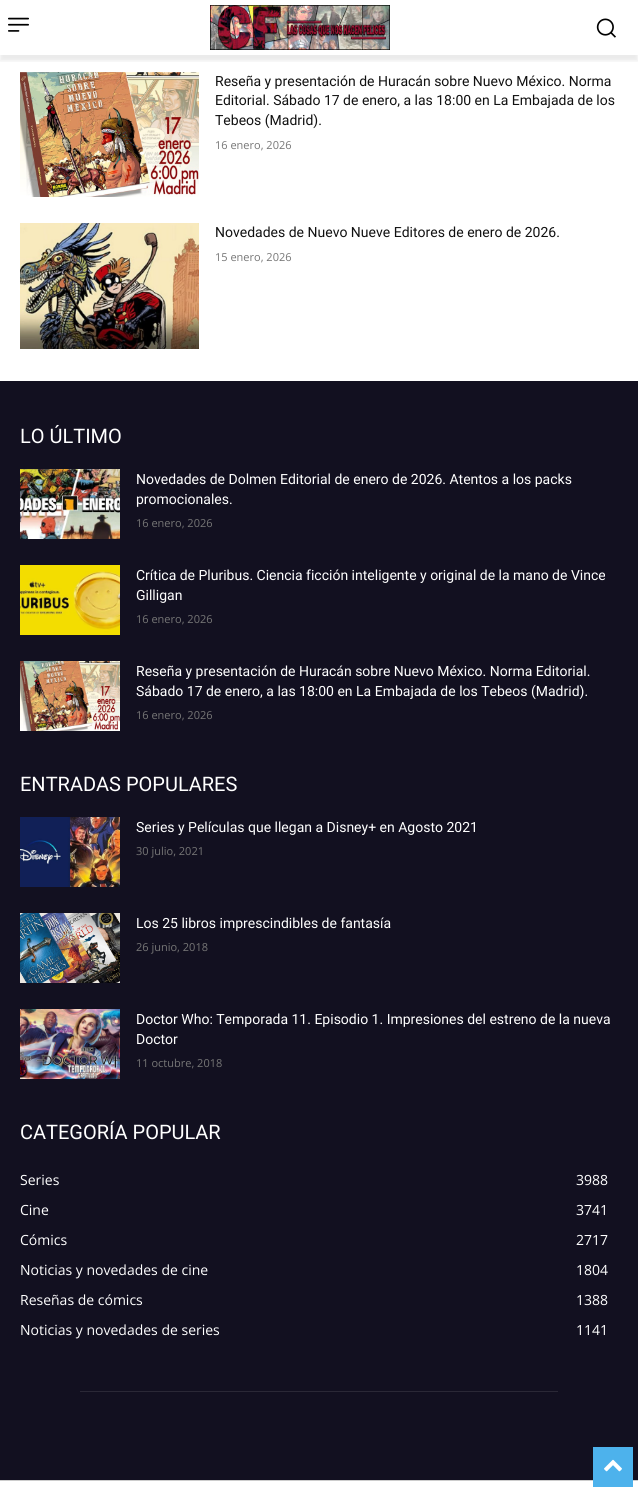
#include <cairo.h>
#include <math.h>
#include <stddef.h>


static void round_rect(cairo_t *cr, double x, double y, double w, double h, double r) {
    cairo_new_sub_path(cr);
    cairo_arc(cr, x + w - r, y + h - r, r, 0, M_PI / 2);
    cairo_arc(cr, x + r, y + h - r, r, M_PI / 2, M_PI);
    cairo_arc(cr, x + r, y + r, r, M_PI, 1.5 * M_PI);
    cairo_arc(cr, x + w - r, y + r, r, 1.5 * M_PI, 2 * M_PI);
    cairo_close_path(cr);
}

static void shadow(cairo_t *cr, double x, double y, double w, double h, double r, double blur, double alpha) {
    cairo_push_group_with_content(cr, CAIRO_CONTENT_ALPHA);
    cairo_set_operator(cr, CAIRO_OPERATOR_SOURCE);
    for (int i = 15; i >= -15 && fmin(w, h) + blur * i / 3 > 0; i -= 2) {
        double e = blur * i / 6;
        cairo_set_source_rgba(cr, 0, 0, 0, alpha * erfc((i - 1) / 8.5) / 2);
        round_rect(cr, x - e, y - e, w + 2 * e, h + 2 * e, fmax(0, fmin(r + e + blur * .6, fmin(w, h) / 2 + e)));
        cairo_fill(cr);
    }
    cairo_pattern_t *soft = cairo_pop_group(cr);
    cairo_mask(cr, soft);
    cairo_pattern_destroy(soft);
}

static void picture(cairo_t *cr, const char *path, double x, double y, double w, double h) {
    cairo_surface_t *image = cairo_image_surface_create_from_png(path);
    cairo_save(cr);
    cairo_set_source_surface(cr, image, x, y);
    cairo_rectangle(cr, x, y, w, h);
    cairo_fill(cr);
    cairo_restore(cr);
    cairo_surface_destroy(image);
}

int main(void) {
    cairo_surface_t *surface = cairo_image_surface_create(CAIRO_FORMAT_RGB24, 638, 1491);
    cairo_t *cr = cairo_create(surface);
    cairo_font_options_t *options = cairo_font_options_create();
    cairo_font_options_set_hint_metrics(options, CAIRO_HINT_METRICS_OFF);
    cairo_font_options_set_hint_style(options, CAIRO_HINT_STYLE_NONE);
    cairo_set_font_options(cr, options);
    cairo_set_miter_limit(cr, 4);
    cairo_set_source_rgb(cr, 1, 1, 1);
    cairo_paint(cr);
    picture(cr, "img1.png", 8, 17, 21, 15);
    picture(cr, "img2.png", 210, 5, 180, 45);
    picture(cr, "img3.png", 596, 18, 20, 20);
    cairo_save(cr);
    cairo_rectangle(cr, 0, 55, 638, 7);
    cairo_clip(cr);
    cairo_set_source_rgb(cr, 0, 0, 0);
    shadow(cr, 0, 6, 638, 55, 0, 2, 0.08);
    cairo_restore(cr);
    picture(cr, "img4.png", 20, 72, 179, 125);
    cairo_select_font_face(cr, "Roboto", CAIRO_FONT_SLANT_NORMAL, CAIRO_FONT_WEIGHT_NORMAL);
    cairo_set_font_size(cr, 14);
    cairo_set_source_rgb(cr, 0.067, 0.067, 0.067);
    cairo_move_to(cr, 215, 86);
    cairo_show_text(cr, "Reseña y presentación de Huracán sobre Nuevo México. Norma");
    cairo_move_to(cr, 215, 105);
    cairo_show_text(cr, "Editorial. Sábado 17 de enero, a las 18:00 en La Embajada de los");
    cairo_move_to(cr, 215, 125);
    cairo_show_text(cr, "Tebeos (Madrid).");
    cairo_select_font_face(cr, "Open Sans", CAIRO_FONT_SLANT_NORMAL, CAIRO_FONT_WEIGHT_NORMAL);
    cairo_set_font_size(cr, 11);
    cairo_set_source_rgb(cr, 0.463, 0.463, 0.463);
    cairo_move_to(cr, 215, 149);
    cairo_show_text(cr, "16 enero, 2026");
    picture(cr, "img5.png", 20, 223, 179, 126);
    cairo_select_font_face(cr, "Roboto", CAIRO_FONT_SLANT_NORMAL, CAIRO_FONT_WEIGHT_NORMAL);
    cairo_set_font_size(cr, 14);
    cairo_set_source_rgb(cr, 0.067, 0.067, 0.067);
    cairo_move_to(cr, 215, 237);
    cairo_show_text(cr, "Novedades de Nuevo Nueve Editores de enero de 2026.");
    cairo_select_font_face(cr, "Open Sans", CAIRO_FONT_SLANT_NORMAL, CAIRO_FONT_WEIGHT_NORMAL);
    cairo_set_font_size(cr, 11);
    cairo_set_source_rgb(cr, 0.463, 0.463, 0.463);
    cairo_move_to(cr, 215, 261);
    cairo_show_text(cr, "15 enero, 2026");
    cairo_set_source_rgb(cr, 0.071, 0.063, 0.125);
    cairo_rectangle(cr, 0, 381, 638, 1099);
    cairo_fill(cr);
    cairo_select_font_face(cr, "Roboto", CAIRO_FONT_SLANT_NORMAL, CAIRO_FONT_WEIGHT_NORMAL);
    cairo_set_font_size(cr, 20);
    cairo_set_source_rgb(cr, 1, 1, 1);
    cairo_move_to(cr, 20, 443);
    cairo_show_text(cr, "LO ÚLTIMO");
    picture(cr, "img6.png", 20, 469, 100, 70);
    cairo_set_font_size(cr, 14);
    cairo_move_to(cr, 136, 484);
    cairo_show_text(cr, "Novedades de Dolmen Editorial de enero de 2026. Atentos a los packs");
    cairo_move_to(cr, 136, 504);
    cairo_show_text(cr, "promocionales.");
    cairo_select_font_face(cr, "Open Sans", CAIRO_FONT_SLANT_NORMAL, CAIRO_FONT_WEIGHT_NORMAL);
    cairo_set_font_size(cr, 11);
    cairo_set_source_rgb(cr, 0.463, 0.463, 0.463);
    cairo_move_to(cr, 136, 527);
    cairo_show_text(cr, "16 enero, 2026");
    picture(cr, "img7.png", 20, 565, 100, 70);
    cairo_select_font_face(cr, "Roboto", CAIRO_FONT_SLANT_NORMAL, CAIRO_FONT_WEIGHT_NORMAL);
    cairo_set_font_size(cr, 14);
    cairo_set_source_rgb(cr, 1, 1, 1);
    cairo_move_to(cr, 136, 580);
    cairo_show_text(cr, "Crítica de Pluribus. Ciencia ficción inteligente y original de la mano de Vince");
    cairo_move_to(cr, 136, 600);
    cairo_show_text(cr, "Gilligan");
    cairo_select_font_face(cr, "Open Sans", CAIRO_FONT_SLANT_NORMAL, CAIRO_FONT_WEIGHT_NORMAL);
    cairo_set_font_size(cr, 11);
    cairo_set_source_rgb(cr, 0.463, 0.463, 0.463);
    cairo_move_to(cr, 136, 623);
    cairo_show_text(cr, "16 enero, 2026");
    picture(cr, "img8.png", 20, 661, 100, 70);
    cairo_select_font_face(cr, "Roboto", CAIRO_FONT_SLANT_NORMAL, CAIRO_FONT_WEIGHT_NORMAL);
    cairo_set_font_size(cr, 14);
    cairo_set_source_rgb(cr, 1, 1, 1);
    cairo_move_to(cr, 136, 676);
    cairo_show_text(cr, "Reseña y presentación de Huracán sobre Nuevo México. Norma Editorial.");
    cairo_move_to(cr, 136, 696);
    cairo_show_text(cr, "Sábado 17 de enero, a las 18:00 en La Embajada de los Tebeos (Madrid).");
    cairo_select_font_face(cr, "Open Sans", CAIRO_FONT_SLANT_NORMAL, CAIRO_FONT_WEIGHT_NORMAL);
    cairo_set_font_size(cr, 11);
    cairo_set_source_rgb(cr, 0.463, 0.463, 0.463);
    cairo_move_to(cr, 136, 719);
    cairo_show_text(cr, "16 enero, 2026");
    cairo_select_font_face(cr, "Roboto", CAIRO_FONT_SLANT_NORMAL, CAIRO_FONT_WEIGHT_NORMAL);
    cairo_set_font_size(cr, 20);
    cairo_set_source_rgb(cr, 1, 1, 1);
    cairo_move_to(cr, 20, 791);
    cairo_show_text(cr, "ENTRADAS POPULARES");
    picture(cr, "img9.png", 20, 817, 100, 70);
    cairo_set_font_size(cr, 14);
    cairo_move_to(cr, 136, 832);
    cairo_show_text(cr, "Series y Películas que llegan a Disney+ en Agosto 2021");
    cairo_select_font_face(cr, "Open Sans", CAIRO_FONT_SLANT_NORMAL, CAIRO_FONT_WEIGHT_NORMAL);
    cairo_set_font_size(cr, 11);
    cairo_set_source_rgb(cr, 0.463, 0.463, 0.463);
    cairo_move_to(cr, 136, 855);
    cairo_show_text(cr, "30 julio, 2021");
    picture(cr, "img10.png", 20, 913, 100, 70);
    cairo_select_font_face(cr, "Roboto", CAIRO_FONT_SLANT_NORMAL, CAIRO_FONT_WEIGHT_NORMAL);
    cairo_set_font_size(cr, 14);
    cairo_set_source_rgb(cr, 1, 1, 1);
    cairo_move_to(cr, 136, 928);
    cairo_show_text(cr, "Los 25 libros imprescindibles de fantasía");
    cairo_select_font_face(cr, "Open Sans", CAIRO_FONT_SLANT_NORMAL, CAIRO_FONT_WEIGHT_NORMAL);
    cairo_set_font_size(cr, 11);
    cairo_set_source_rgb(cr, 0.463, 0.463, 0.463);
    cairo_move_to(cr, 136, 951);
    cairo_show_text(cr, "26 junio, 2018");
    picture(cr, "img11.png", 20, 1009, 100, 70);
    cairo_select_font_face(cr, "Roboto", CAIRO_FONT_SLANT_NORMAL, CAIRO_FONT_WEIGHT_NORMAL);
    cairo_set_font_size(cr, 14);
    cairo_set_source_rgb(cr, 1, 1, 1);
    cairo_move_to(cr, 136, 1024);
    cairo_show_text(cr, "Doctor Who: Temporada 11. Episodio 1. Impresiones del estreno de la nueva");
    cairo_move_to(cr, 136, 1044);
    cairo_show_text(cr, "Doctor");
    cairo_select_font_face(cr, "Open Sans", CAIRO_FONT_SLANT_NORMAL, CAIRO_FONT_WEIGHT_NORMAL);
    cairo_set_font_size(cr, 11);
    cairo_set_source_rgb(cr, 0.463, 0.463, 0.463);
    cairo_move_to(cr, 136, 1067);
    cairo_show_text(cr, "11 octubre, 2018");
    cairo_select_font_face(cr, "Roboto", CAIRO_FONT_SLANT_NORMAL, CAIRO_FONT_WEIGHT_NORMAL);
    cairo_set_font_size(cr, 20);
    cairo_set_source_rgb(cr, 1, 1, 1);
    cairo_move_to(cr, 20, 1139);
    cairo_show_text(cr, "CATEGORÍA POPULAR");
    cairo_select_font_face(cr, "Open Sans", CAIRO_FONT_SLANT_NORMAL, CAIRO_FONT_WEIGHT_NORMAL);
    cairo_set_font_size(cr, 14);
    cairo_move_to(cr, 20, 1185);
    cairo_show_text(cr, "Series");
    cairo_move_to(cr, 576, 1185);
    cairo_show_text(cr, "3988");
    cairo_move_to(cr, 20, 1215);
    cairo_show_text(cr, "Cine");
    cairo_move_to(cr, 576, 1215);
    cairo_show_text(cr, "3741");
    cairo_move_to(cr, 20, 1245);
    cairo_show_text(cr, "Cómics");
    cairo_move_to(cr, 576, 1245);
    cairo_show_text(cr, "2717");
    cairo_move_to(cr, 20, 1275);
    cairo_show_text(cr, "Noticias y novedades de cine");
    cairo_move_to(cr, 576, 1275);
    cairo_show_text(cr, "1804");
    cairo_move_to(cr, 20, 1305);
    cairo_show_text(cr, "Reseñas de cómics");
    cairo_move_to(cr, 576, 1305);
    cairo_show_text(cr, "1388");
    cairo_move_to(cr, 20, 1335);
    cairo_show_text(cr, "Noticias y novedades de series");
    cairo_move_to(cr, 576, 1335);
    cairo_show_text(cr, "1141");
    cairo_set_source_rgb(cr, 0.165, 0.157, 0.212);
    cairo_rectangle(cr, 80, 1391, 478, 1);
    cairo_fill(cr);
    cairo_set_source_rgb(cr, 0.8, 0.8, 0.8);
    cairo_rectangle(cr, 0, 1480, 638, 1);
    cairo_fill(cr);
    cairo_set_source_rgb(cr, 0.302, 0.698, 0.925);
    cairo_rectangle(cr, 593, 1447, 40, 40);
    cairo_fill(cr);
    picture(cr, "img12.png", 604, 1459, 18, 13);
    cairo_surface_write_to_png(surface, "page.png");
    cairo_font_options_destroy(options);
    cairo_destroy(cr);
    cairo_surface_destroy(surface);
    return 0;
}
